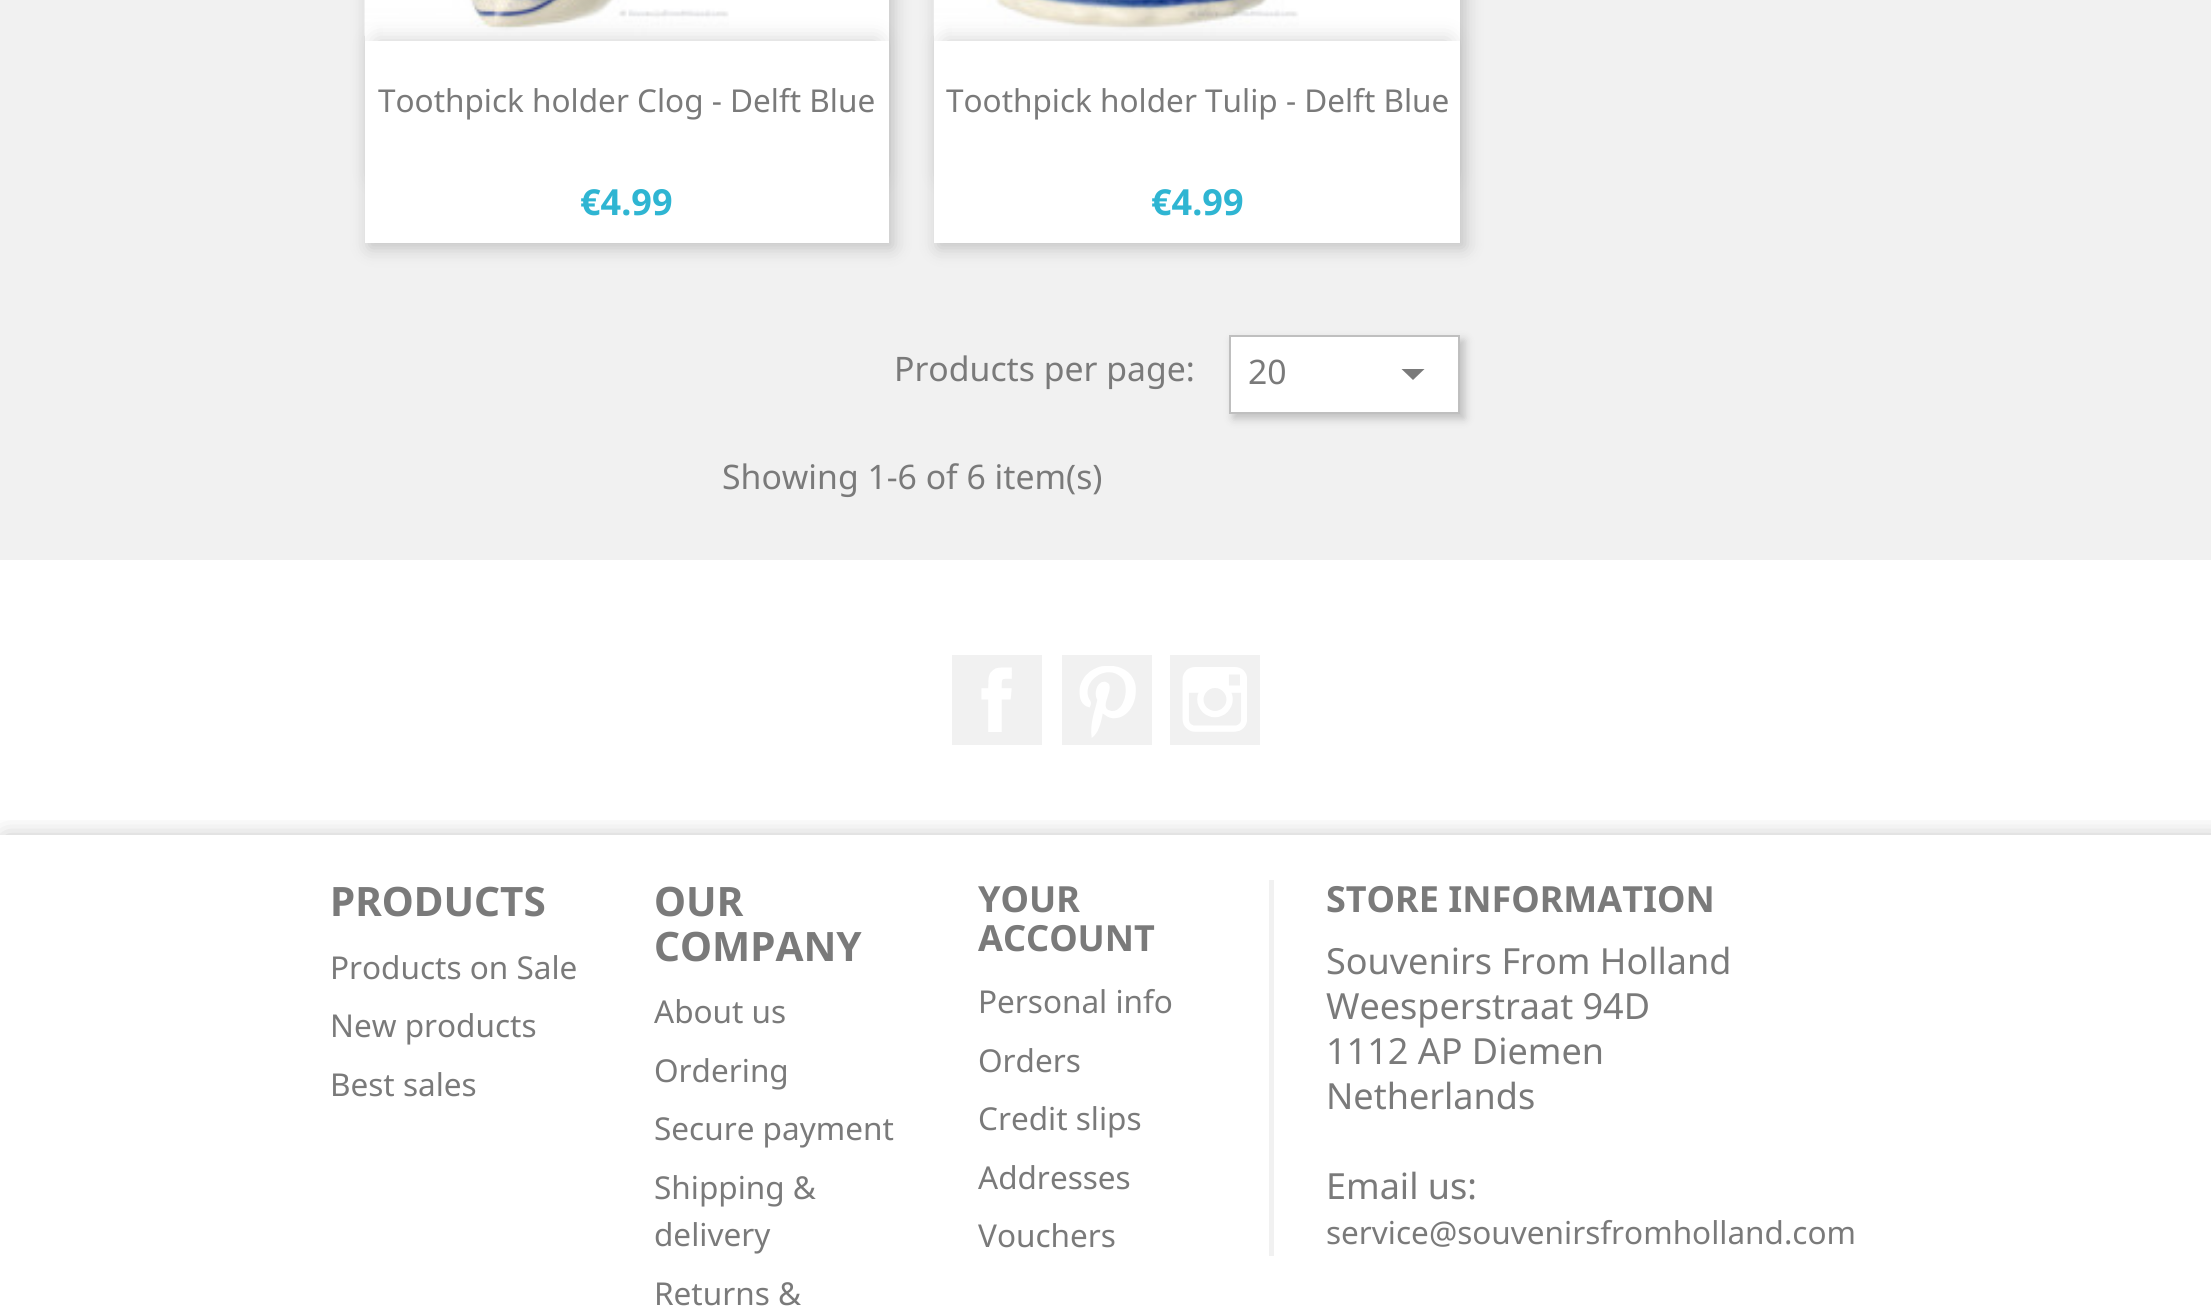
#include <cairo.h>
#include <math.h>
#include <stddef.h>


static void round_rect(cairo_t *cr, double x, double y, double w, double h, double r) {
    cairo_new_sub_path(cr);
    cairo_arc(cr, x + w - r, y + h - r, r, 0, M_PI / 2);
    cairo_arc(cr, x + r, y + h - r, r, M_PI / 2, M_PI);
    cairo_arc(cr, x + r, y + r, r, M_PI, 1.5 * M_PI);
    cairo_arc(cr, x + w - r, y + r, r, 1.5 * M_PI, 2 * M_PI);
    cairo_close_path(cr);
}

static void shadow(cairo_t *cr, double x, double y, double w, double h, double r, double blur, double alpha) {
    cairo_push_group_with_content(cr, CAIRO_CONTENT_ALPHA);
    cairo_set_operator(cr, CAIRO_OPERATOR_SOURCE);
    for (int i = 15; i >= -15 && fmin(w, h) + blur * i / 3 > 0; i -= 2) {
        double e = blur * i / 6;
        cairo_set_source_rgba(cr, 0, 0, 0, alpha * erfc((i - 1) / 8.5) / 2);
        round_rect(cr, x - e, y - e, w + 2 * e, h + 2 * e, fmax(0, fmin(r + e + blur * .6, fmin(w, h) / 2 + e)));
        cairo_fill(cr);
    }
    cairo_pattern_t *soft = cairo_pop_group(cr);
    cairo_mask(cr, soft);
    cairo_pattern_destroy(soft);
}

static void picture(cairo_t *cr, const char *path, double x, double y, double w, double h) {
    cairo_surface_t *image = cairo_image_surface_create_from_png(path);
    cairo_save(cr);
    cairo_set_source_surface(cr, image, x, y);
    cairo_rectangle(cr, x, y, w, h);
    cairo_fill(cr);
    cairo_restore(cr);
    cairo_surface_destroy(image);
}

int main(void) {
    cairo_surface_t *surface = cairo_image_surface_create(CAIRO_FORMAT_RGB24, 2211, 1313);
    cairo_t *cr = cairo_create(surface);
    cairo_font_options_t *options = cairo_font_options_create();
    cairo_font_options_set_hint_metrics(options, CAIRO_HINT_METRICS_OFF);
    cairo_font_options_set_hint_style(options, CAIRO_HINT_STYLE_NONE);
    cairo_set_font_options(cr, options);
    cairo_set_miter_limit(cr, 4);
    cairo_set_source_rgb(cr, 1, 1, 1);
    cairo_paint(cr);
    cairo_set_source_rgb(cr, 0.945, 0.945, 0.945);
    cairo_rectangle(cr, 0, 0, 2211, 560);
    cairo_fill(cr);
    cairo_set_source_rgb(cr, 0, 0, 0);
    shadow(cr, 369, -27, 524, 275, 0, 9, 0.2);
    cairo_set_source_rgb(cr, 1, 1, 1);
    cairo_rectangle(cr, 365, 0, 524, 41);
    cairo_fill(cr);
    picture(cr, "img1.png", 364, 0, 365, 36);
    cairo_set_source_rgb(cr, 0, 0, 0);
    shadow(cr, 376, 41, 502, 135, 0, 11, 0.2);
    cairo_set_source_rgb(cr, 1, 1, 1);
    cairo_rectangle(cr, 365, 41, 524, 202);
    cairo_fill(cr);
    cairo_select_font_face(cr, "Noto Sans", CAIRO_FONT_SLANT_NORMAL, CAIRO_FONT_WEIGHT_NORMAL);
    cairo_set_font_size(cr, 31.5);
    cairo_set_source_rgb(cr, 0.478, 0.478, 0.478);
    cairo_move_to(cr, 378, 112);
    cairo_show_text(cr, "Toothpick holder Clog - Delft Blue");
    cairo_select_font_face(cr, "Noto Sans", CAIRO_FONT_SLANT_NORMAL, CAIRO_FONT_WEIGHT_BOLD);
    cairo_set_font_size(cr, 36);
    cairo_set_source_rgb(cr, 0.184, 0.71, 0.824);
    cairo_move_to(cr, 580, 215);
    cairo_show_text(cr, "€4.99");
    cairo_set_source_rgb(cr, 0, 0, 0);
    shadow(cr, 938, -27, 527, 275, 0, 9, 0.2);
    cairo_set_source_rgb(cr, 1, 1, 1);
    cairo_rectangle(cr, 934, 0, 526, 41);
    cairo_fill(cr);
    picture(cr, "img2.png", 933, 0, 366, 36);
    cairo_set_source_rgb(cr, 0, 0, 0);
    shadow(cr, 945, 41, 504, 135, 0, 11, 0.2);
    cairo_set_source_rgb(cr, 1, 1, 1);
    cairo_rectangle(cr, 934, 41, 526, 202);
    cairo_fill(cr);
    cairo_select_font_face(cr, "Noto Sans", CAIRO_FONT_SLANT_NORMAL, CAIRO_FONT_WEIGHT_NORMAL);
    cairo_set_font_size(cr, 31.5);
    cairo_set_source_rgb(cr, 0.478, 0.478, 0.478);
    cairo_move_to(cr, 946, 112);
    cairo_show_text(cr, "Toothpick holder Tulip - Delft Blue");
    cairo_select_font_face(cr, "Noto Sans", CAIRO_FONT_SLANT_NORMAL, CAIRO_FONT_WEIGHT_BOLD);
    cairo_set_font_size(cr, 36);
    cairo_set_source_rgb(cr, 0.184, 0.71, 0.824);
    cairo_move_to(cr, 1151, 215);
    cairo_show_text(cr, "€4.99");
    cairo_select_font_face(cr, "Noto Sans", CAIRO_FONT_SLANT_NORMAL, CAIRO_FONT_WEIGHT_NORMAL);
    cairo_set_font_size(cr, 33.75);
    cairo_set_source_rgb(cr, 0.478, 0.478, 0.478);
    cairo_move_to(cr, 894, 381);
    cairo_show_text(cr, "Products per page:");
    cairo_set_source_rgb(cr, 0, 0, 0);
    shadow(cr, 1233, 340, 232, 79, 0, 4.5, 0.2);
    cairo_set_source_rgb(cr, 1, 1, 1);
    cairo_rectangle(cr, 1230, 336, 229, 77);
    cairo_fill_preserve(cr);
    cairo_set_source_rgb(cr, 0.749, 0.749, 0.749);
    cairo_stroke(cr);
    cairo_set_source_rgb(cr, 0.478, 0.478, 0.478);
    cairo_move_to(cr, 1248, 384);
    cairo_show_text(cr, "20");
    cairo_new_path(cr);
    cairo_move_to(cr, 1401.5, 369);
    cairo_line_to(cr, 1424.5, 369);
    cairo_line_to(cr, 1413, 380);
    cairo_close_path(cr);
    cairo_fill(cr);
    cairo_move_to(cr, 722, 489);
    cairo_show_text(cr, "Showing 1-6 of 6 item(s)");
    cairo_set_source_rgb(cr, 0.945, 0.945, 0.945);
    cairo_rectangle(cr, 952, 655, 90, 90);
    cairo_fill(cr);
    picture(cr, "img3.png", 981, 667, 31, 65);
    cairo_rectangle(cr, 1062, 655, 90, 90);
    cairo_fill(cr);
    picture(cr, "img4.png", 1079, 666, 57, 72);
    cairo_rectangle(cr, 1170, 655, 90, 90);
    cairo_fill(cr);
    picture(cr, "img5.png", 1182, 667, 65, 65);
    cairo_save(cr);
    cairo_rectangle(cr, 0, 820, 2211, 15);
    cairo_clip(cr);
    cairo_set_source_rgb(cr, 0, 0, 0);
    shadow(cr, 5, 839, 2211, 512, 0, 12.5, 0.3);
    cairo_restore(cr);
    cairo_select_font_face(cr, "Noto Sans", CAIRO_FONT_SLANT_NORMAL, CAIRO_FONT_WEIGHT_BOLD);
    cairo_set_font_size(cr, 40.5);
    cairo_set_source_rgb(cr, 0.478, 0.478, 0.478);
    cairo_move_to(cr, 330, 916);
    cairo_show_text(cr, "PRODUCTS");
    cairo_select_font_face(cr, "Noto Sans", CAIRO_FONT_SLANT_NORMAL, CAIRO_FONT_WEIGHT_NORMAL);
    cairo_set_font_size(cr, 31.5);
    cairo_move_to(cr, 330, 979);
    cairo_show_text(cr, "Products on Sale");
    cairo_move_to(cr, 330, 1037);
    cairo_show_text(cr, "New products");
    cairo_move_to(cr, 330, 1096);
    cairo_show_text(cr, "Best sales");
    cairo_select_font_face(cr, "Noto Sans", CAIRO_FONT_SLANT_NORMAL, CAIRO_FONT_WEIGHT_BOLD);
    cairo_set_font_size(cr, 40.5);
    cairo_move_to(cr, 654, 916);
    cairo_show_text(cr, "OUR");
    cairo_move_to(cr, 654, 961);
    cairo_show_text(cr, "COMPANY");
    cairo_select_font_face(cr, "Noto Sans", CAIRO_FONT_SLANT_NORMAL, CAIRO_FONT_WEIGHT_NORMAL);
    cairo_set_font_size(cr, 31.5);
    cairo_move_to(cr, 654, 1023);
    cairo_show_text(cr, "About us");
    cairo_move_to(cr, 654, 1082);
    cairo_show_text(cr, "Ordering");
    cairo_move_to(cr, 654, 1140);
    cairo_show_text(cr, "Secure payment");
    cairo_move_to(cr, 654, 1199);
    cairo_show_text(cr, "Shipping &");
    cairo_move_to(cr, 654, 1246);
    cairo_show_text(cr, "delivery");
    cairo_move_to(cr, 654, 1305);
    cairo_show_text(cr, "Returns &");
    cairo_select_font_face(cr, "Noto Sans", CAIRO_FONT_SLANT_NORMAL, CAIRO_FONT_WEIGHT_BOLD);
    cairo_set_font_size(cr, 36);
    cairo_move_to(cr, 978, 912);
    cairo_show_text(cr, "YOUR");
    cairo_move_to(cr, 978, 951);
    cairo_show_text(cr, "ACCOUNT");
    cairo_select_font_face(cr, "Noto Sans", CAIRO_FONT_SLANT_NORMAL, CAIRO_FONT_WEIGHT_NORMAL);
    cairo_set_font_size(cr, 31.5);
    cairo_move_to(cr, 978, 1013);
    cairo_show_text(cr, "Personal info");
    cairo_move_to(cr, 978, 1072);
    cairo_show_text(cr, "Orders");
    cairo_move_to(cr, 978, 1130);
    cairo_show_text(cr, "Credit slips");
    cairo_move_to(cr, 978, 1189);
    cairo_show_text(cr, "Addresses");
    cairo_move_to(cr, 978, 1247);
    cairo_show_text(cr, "Vouchers");
    cairo_set_source_rgb(cr, 0.945, 0.945, 0.945);
    cairo_rectangle(cr, 1269, 880, 5, 376);
    cairo_fill(cr);
    cairo_select_font_face(cr, "Noto Sans", CAIRO_FONT_SLANT_NORMAL, CAIRO_FONT_WEIGHT_BOLD);
    cairo_set_font_size(cr, 36);
    cairo_set_source_rgb(cr, 0.478, 0.478, 0.478);
    cairo_move_to(cr, 1326, 912);
    cairo_show_text(cr, "STORE INFORMATION");
    cairo_select_font_face(cr, "Noto Sans", CAIRO_FONT_SLANT_NORMAL, CAIRO_FONT_WEIGHT_NORMAL);
    cairo_move_to(cr, 1326, 974);
    cairo_show_text(cr, "Souvenirs From Holland");
    cairo_move_to(cr, 1326, 1019);
    cairo_show_text(cr, "Weesperstraat 94D");
    cairo_move_to(cr, 1326, 1064);
    cairo_show_text(cr, "1112 AP Diemen");
    cairo_move_to(cr, 1326, 1109);
    cairo_show_text(cr, "Netherlands");
    cairo_move_to(cr, 1326, 1199);
    cairo_show_text(cr, "Email us:");
    cairo_set_font_size(cr, 31.5);
    cairo_move_to(cr, 1326, 1244);
    cairo_show_text(cr, "service@souvenirsfromholland.com");
    cairo_surface_write_to_png(surface, "page.png");
    cairo_font_options_destroy(options);
    cairo_destroy(cr);
    cairo_surface_destroy(surface);
    return 0;
}
